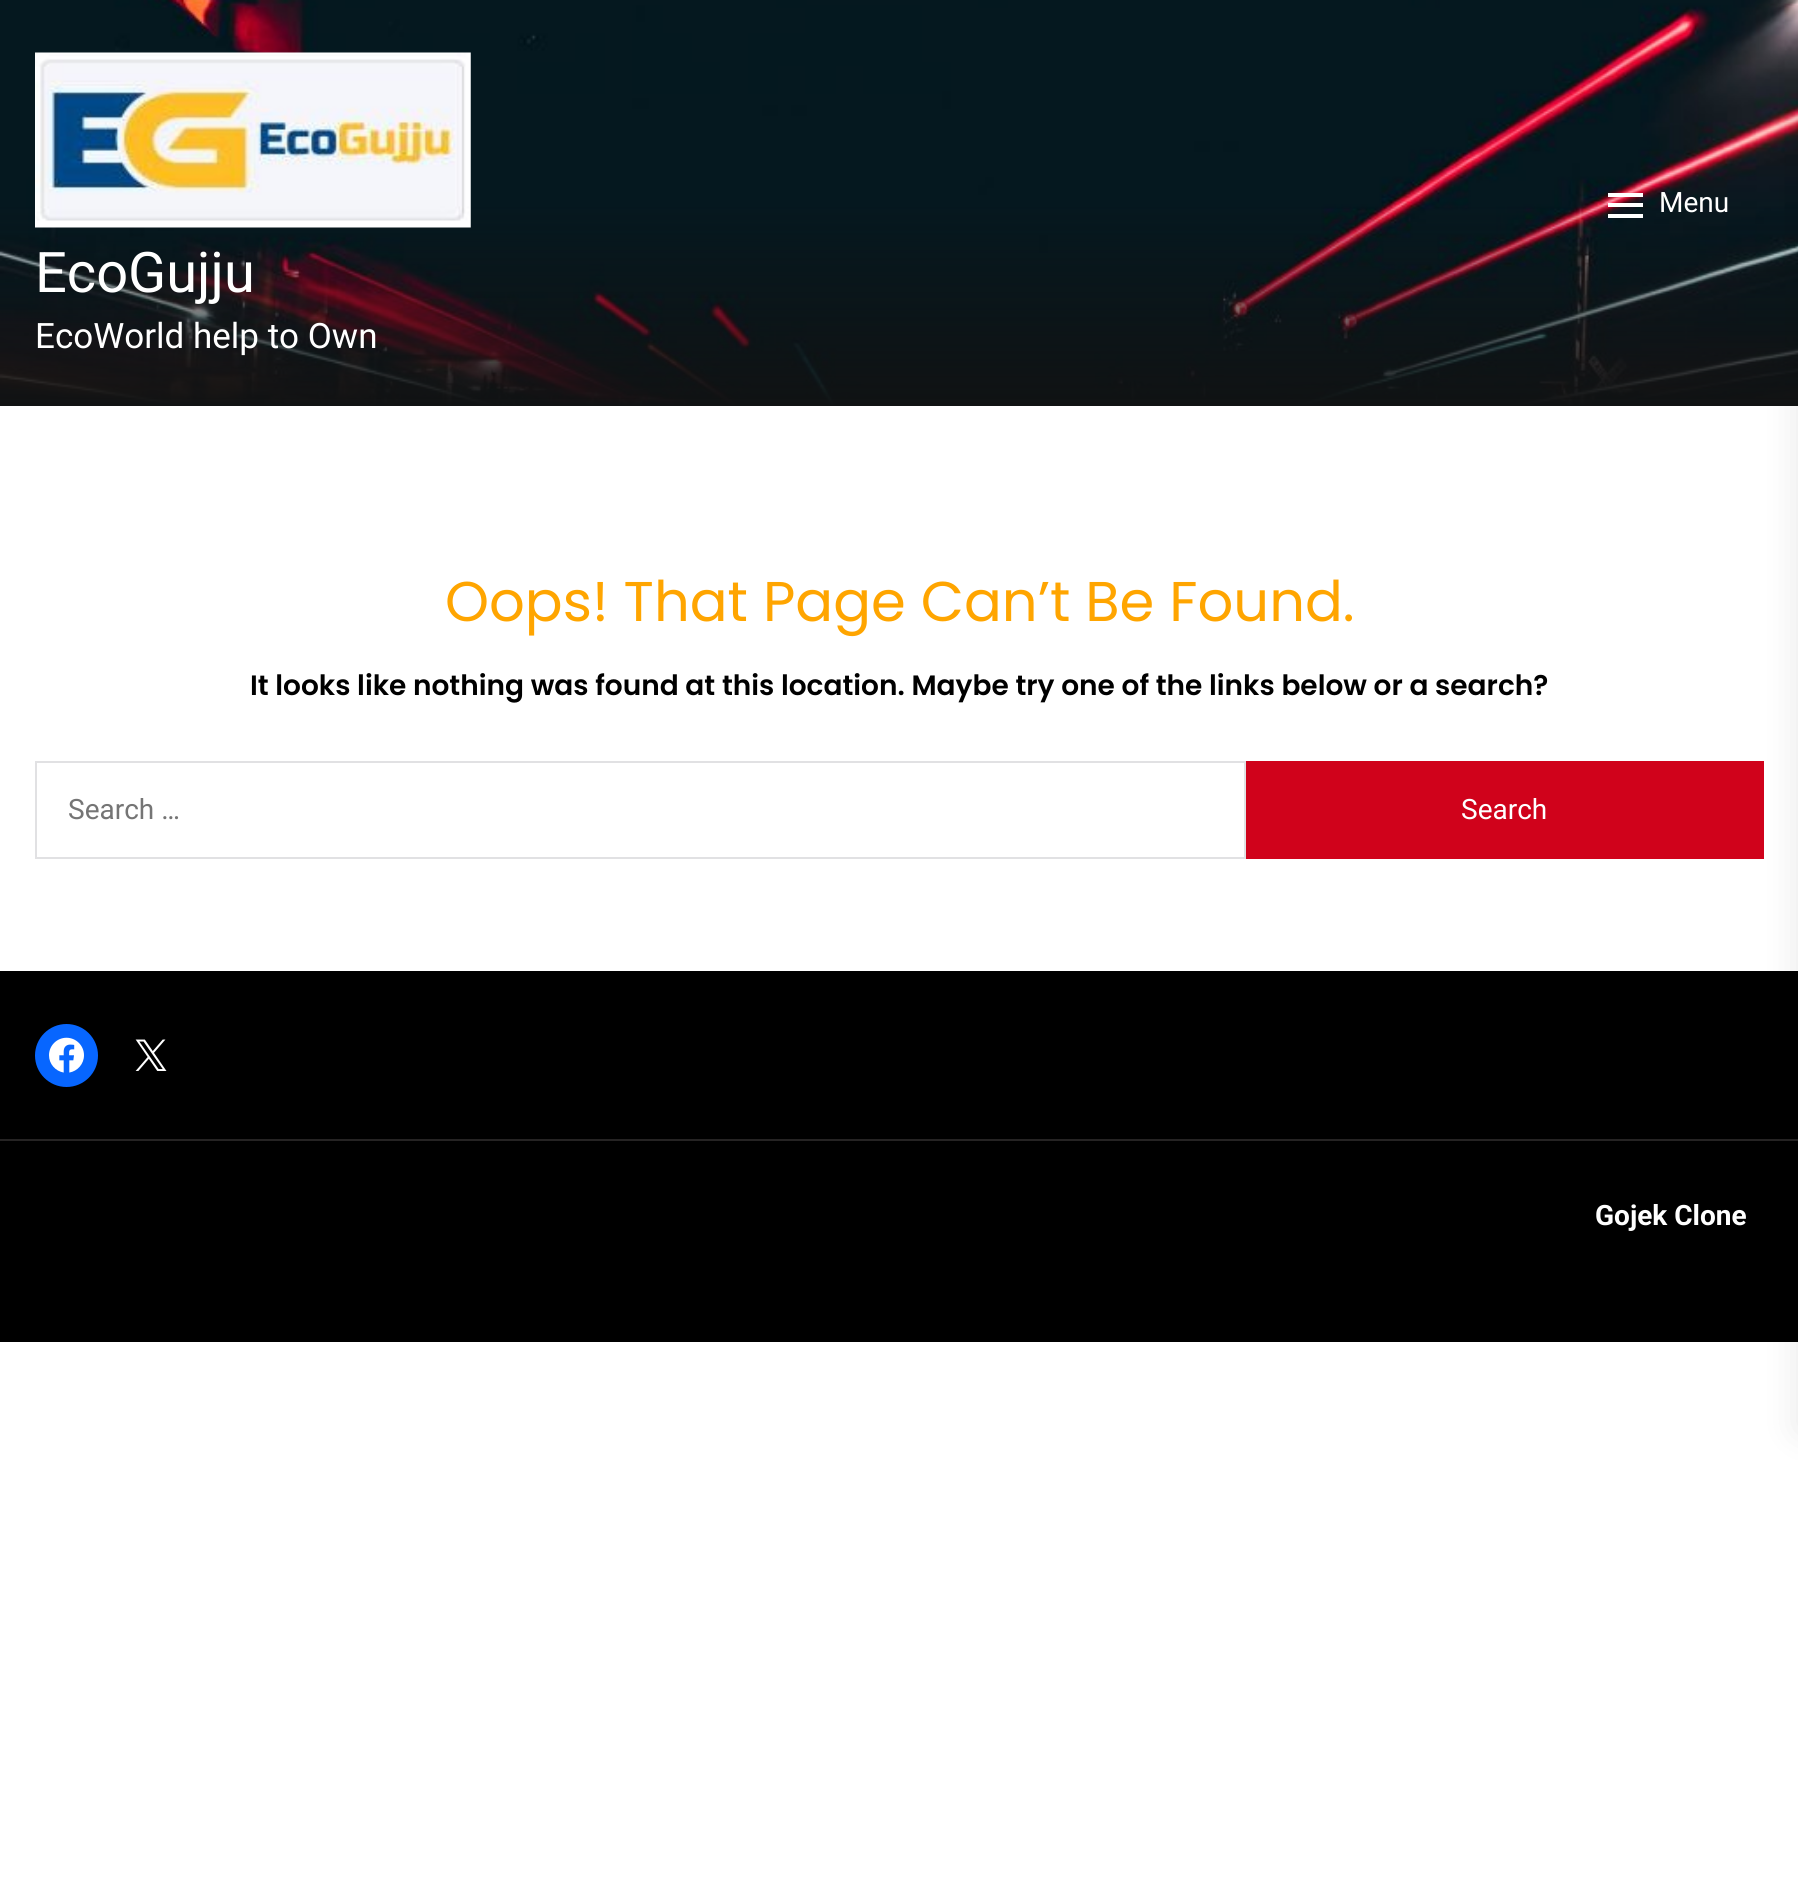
#include <cairo.h>
#include <math.h>
#include <stddef.h>


static void round_rect(cairo_t *cr, double x, double y, double w, double h, double r) {
    cairo_new_sub_path(cr);
    cairo_arc(cr, x + w - r, y + h - r, r, 0, M_PI / 2);
    cairo_arc(cr, x + r, y + h - r, r, M_PI / 2, M_PI);
    cairo_arc(cr, x + r, y + r, r, M_PI, 1.5 * M_PI);
    cairo_arc(cr, x + w - r, y + r, r, 1.5 * M_PI, 2 * M_PI);
    cairo_close_path(cr);
}

static void shadow(cairo_t *cr, double x, double y, double w, double h, double r, double blur, double alpha) {
    cairo_push_group_with_content(cr, CAIRO_CONTENT_ALPHA);
    cairo_set_operator(cr, CAIRO_OPERATOR_SOURCE);
    for (int i = 15; i >= -15 && fmin(w, h) + blur * i / 3 > 0; i -= 2) {
        double e = blur * i / 6;
        cairo_set_source_rgba(cr, 0, 0, 0, alpha * erfc((i - 1) / 8.5) / 2);
        round_rect(cr, x - e, y - e, w + 2 * e, h + 2 * e, fmax(0, fmin(r + e + blur * .6, fmin(w, h) / 2 + e)));
        cairo_fill(cr);
    }
    cairo_pattern_t *soft = cairo_pop_group(cr);
    cairo_mask(cr, soft);
    cairo_pattern_destroy(soft);
}

static void picture(cairo_t *cr, const char *path, double x, double y, double w, double h) {
    cairo_surface_t *image = cairo_image_surface_create_from_png(path);
    cairo_save(cr);
    cairo_set_source_surface(cr, image, x, y);
    cairo_rectangle(cr, x, y, w, h);
    cairo_fill(cr);
    cairo_restore(cr);
    cairo_surface_destroy(image);
}

int main(void) {
    cairo_surface_t *surface = cairo_image_surface_create(CAIRO_FORMAT_RGB24, 1798, 1889);
    cairo_t *cr = cairo_create(surface);
    cairo_font_options_t *options = cairo_font_options_create();
    cairo_font_options_set_hint_metrics(options, CAIRO_HINT_METRICS_OFF);
    cairo_font_options_set_hint_style(options, CAIRO_HINT_STYLE_NONE);
    cairo_set_font_options(cr, options);
    cairo_set_miter_limit(cr, 4);
    cairo_pattern_t *gradient;
    cairo_set_source_rgb(cr, 1, 1, 1);
    cairo_paint(cr);
    picture(cr, "img1.png", 0, 0, 1798, 405);
    cairo_set_source_rgb(cr, 1, 1, 1);
    cairo_rectangle(cr, 1608, 193, 35, 4);
    cairo_fill(cr);
    cairo_rectangle(cr, 1608, 203, 35, 4);
    cairo_fill(cr);
    gradient = cairo_pattern_create_linear(900, 406, 900, 0);
    cairo_pattern_add_color_stop_rgba(gradient, 0, 0.063, 0.071, 0.075, 1);
    cairo_pattern_add_color_stop_rgba(gradient, 0.5, 0.063, 0.071, 0.075, 0);
    cairo_set_source(cr, gradient);
    cairo_pattern_destroy(gradient);
    cairo_rectangle(cr, 0, 207, 1798, 199);
    cairo_fill(cr);
    cairo_set_source_rgb(cr, 1, 1, 1);
    cairo_rectangle(cr, 1608, 214, 35, 4);
    cairo_fill(cr);
    cairo_select_font_face(cr, "Roboto", CAIRO_FONT_SLANT_NORMAL, CAIRO_FONT_WEIGHT_NORMAL);
    cairo_set_font_size(cr, 28);
    cairo_move_to(cr, 1659, 212);
    cairo_show_text(cr, "Menu");
    picture(cr, "img2.png", 35, 52, 436, 176);
    cairo_set_font_size(cr, 56);
    cairo_move_to(cr, 35, 292);
    cairo_show_text(cr, "EcoGujju");
    cairo_set_font_size(cr, 35);
    cairo_move_to(cr, 35, 348);
    cairo_show_text(cr, "EcoWorld help to Own");
    cairo_select_font_face(cr, "Poppins", CAIRO_FONT_SLANT_NORMAL, CAIRO_FONT_WEIGHT_NORMAL);
    cairo_set_font_size(cr, 56);
    cairo_set_source_rgb(cr, 1, 0.647, 0);
    cairo_move_to(cr, 445, 621);
    cairo_show_text(cr, "Oops! That Page Can’t Be Found.");
    cairo_select_font_face(cr, "Poppins SemiBold", CAIRO_FONT_SLANT_NORMAL, CAIRO_FONT_WEIGHT_NORMAL);
    cairo_set_font_size(cr, 28);
    cairo_set_source_rgb(cr, 0, 0, 0);
    cairo_move_to(cr, 250, 695);
    cairo_show_text(cr, "It looks like nothing was found at this location. Maybe try one of the links below or a search?");
    cairo_rectangle(cr, 36, 762, 1209, 96);
    cairo_set_source_rgb(cr, 0.882, 0.882, 0.89);
    cairo_stroke(cr);
    cairo_select_font_face(cr, "Roboto", CAIRO_FONT_SLANT_NORMAL, CAIRO_FONT_WEIGHT_NORMAL);
    cairo_set_source_rgb(cr, 0.459, 0.459, 0.459);
    cairo_move_to(cr, 68, 819);
    cairo_show_text(cr, "Search …");
    cairo_set_source_rgb(cr, 0.816, 0.008, 0.106);
    cairo_rectangle(cr, 1246, 761, 518, 98);
    cairo_fill(cr);
    cairo_set_source_rgb(cr, 1, 1, 1);
    cairo_move_to(cr, 1461, 819);
    cairo_show_text(cr, "Search");
    cairo_set_source_rgb(cr, 0, 0, 0);
    cairo_rectangle(cr, 0, 971, 1798, 168);
    cairo_fill(cr);
    cairo_set_source_rgb(cr, 0.145, 0.137, 0.137);
    cairo_rectangle(cr, 0, 1139, 1798, 2);
    cairo_fill(cr);
    cairo_set_source_rgb(cr, 0, 0, 0);
    cairo_rectangle(cr, 0, 1141, 1798, 201);
    cairo_fill(cr);
    cairo_set_source_rgb(cr, 0, 0, 0);
    shadow(cr, 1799, 0, 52, 1430, 0, 17.5, 0.1);
    cairo_set_source_rgb(cr, 0.031, 0.4, 1);
    cairo_arc(cr, 66.5, 1055.5, 31.5, 0, 2 * M_PI);
    cairo_fill(cr);
    picture(cr, "img3.png", 49, 1037, 35, 36);
    picture(cr, "img4.png", 135, 1039, 32, 32);
    cairo_select_font_face(cr, "Roboto", CAIRO_FONT_SLANT_NORMAL, CAIRO_FONT_WEIGHT_BOLD);
    cairo_set_source_rgb(cr, 1, 1, 1);
    cairo_move_to(cr, 1595, 1225);
    cairo_show_text(cr, "Gojek Clone");
    cairo_surface_write_to_png(surface, "page.png");
    cairo_font_options_destroy(options);
    cairo_destroy(cr);
    cairo_surface_destroy(surface);
    return 0;
}
